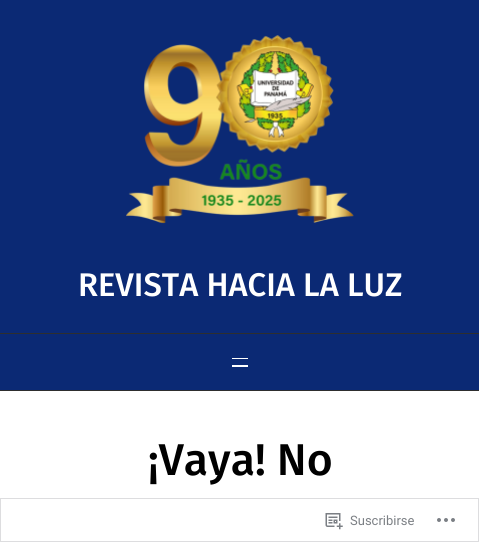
#include <cairo.h>
#include <math.h>
#include <stddef.h>


static void picture(cairo_t *cr, const char *path, double x, double y, double w, double h) {
    cairo_surface_t *image = cairo_image_surface_create_from_png(path);
    cairo_save(cr);
    cairo_set_source_surface(cr, image, x, y);
    cairo_rectangle(cr, x, y, w, h);
    cairo_fill(cr);
    cairo_restore(cr);
    cairo_surface_destroy(image);
}

int main(void) {
    cairo_surface_t *surface = cairo_image_surface_create(CAIRO_FORMAT_RGB24, 479, 542);
    cairo_t *cr = cairo_create(surface);
    cairo_font_options_t *options = cairo_font_options_create();
    cairo_font_options_set_hint_metrics(options, CAIRO_HINT_METRICS_OFF);
    cairo_font_options_set_hint_style(options, CAIRO_HINT_STYLE_NONE);
    cairo_set_font_options(cr, options);
    cairo_set_miter_limit(cr, 4);
    cairo_set_source_rgb(cr, 1, 1, 1);
    cairo_paint(cr);
    cairo_set_source_rgb(cr, 0.043, 0.161, 0.455);
    cairo_rectangle(cr, 0, 0, 479, 390);
    cairo_fill(cr);
    picture(cr, "img1.png", 126, 35, 228, 189);
    cairo_select_font_face(cr, "Fira Sans Medium", CAIRO_FONT_SLANT_NORMAL, CAIRO_FONT_WEIGHT_NORMAL);
    cairo_set_font_size(cr, 32.75);
    cairo_set_source_rgb(cr, 1, 1, 1);
    cairo_move_to(cr, 78, 296);
    cairo_show_text(cr, "REVISTA HACIA LA LUZ");
    cairo_set_source_rgb(cr, 0.18, 0.18, 0.18);
    cairo_rectangle(cr, 0, 333, 479, 1);
    cairo_fill(cr);
    cairo_rectangle(cr, 0, 390, 479, 1);
    cairo_fill(cr);
    cairo_set_source_rgb(cr, 1, 1, 1);
    cairo_rectangle(cr, 232, 358, 16, 1);
    cairo_fill(cr);
    cairo_rectangle(cr, 232, 365, 16, 2);
    cairo_fill(cr);
    cairo_set_font_size(cr, 44.5);
    cairo_set_source_rgb(cr, 0, 0, 0);
    cairo_move_to(cr, 148, 475);
    cairo_show_text(cr, "¡Vaya! No");
    cairo_rectangle(cr, 0.5, 498.5, 478, 43);
    cairo_set_source_rgba(cr, 0.863, 0.863, 0.871, 0.98);
    cairo_set_line_width(cr, 1);
    cairo_stroke(cr);
    picture(cr, "img2.png", 325, 513, 18, 17);
    cairo_select_font_face(cr, "Roboto", CAIRO_FONT_SLANT_NORMAL, CAIRO_FONT_WEIGHT_NORMAL);
    cairo_set_font_size(cr, 13);
    cairo_set_source_rgb(cr, 0.482, 0.498, 0.518);
    cairo_move_to(cr, 350, 525);
    cairo_show_text(cr, "Suscribirse");
    picture(cr, "img3.png", 437, 518, 18, 4);
    cairo_surface_write_to_png(surface, "page.png");
    cairo_font_options_destroy(options);
    cairo_destroy(cr);
    cairo_surface_destroy(surface);
    return 0;
}
